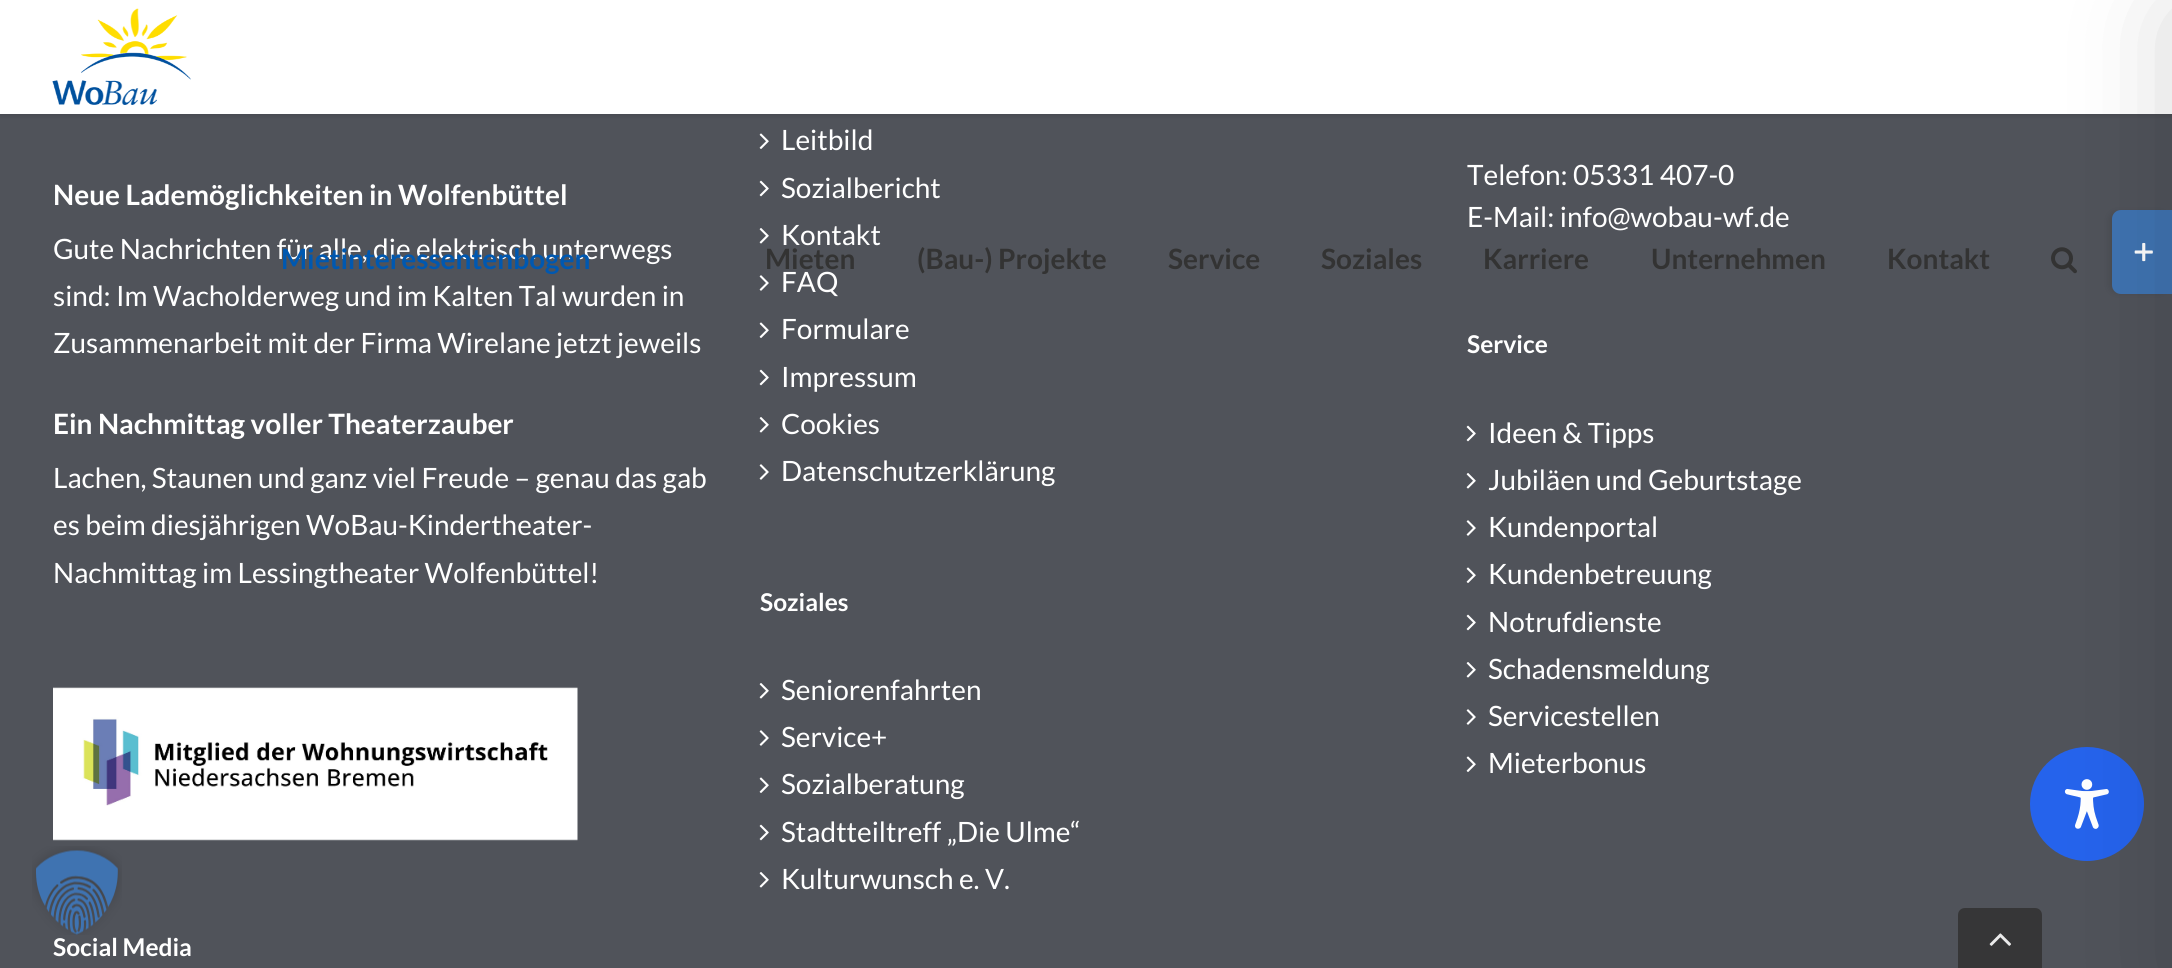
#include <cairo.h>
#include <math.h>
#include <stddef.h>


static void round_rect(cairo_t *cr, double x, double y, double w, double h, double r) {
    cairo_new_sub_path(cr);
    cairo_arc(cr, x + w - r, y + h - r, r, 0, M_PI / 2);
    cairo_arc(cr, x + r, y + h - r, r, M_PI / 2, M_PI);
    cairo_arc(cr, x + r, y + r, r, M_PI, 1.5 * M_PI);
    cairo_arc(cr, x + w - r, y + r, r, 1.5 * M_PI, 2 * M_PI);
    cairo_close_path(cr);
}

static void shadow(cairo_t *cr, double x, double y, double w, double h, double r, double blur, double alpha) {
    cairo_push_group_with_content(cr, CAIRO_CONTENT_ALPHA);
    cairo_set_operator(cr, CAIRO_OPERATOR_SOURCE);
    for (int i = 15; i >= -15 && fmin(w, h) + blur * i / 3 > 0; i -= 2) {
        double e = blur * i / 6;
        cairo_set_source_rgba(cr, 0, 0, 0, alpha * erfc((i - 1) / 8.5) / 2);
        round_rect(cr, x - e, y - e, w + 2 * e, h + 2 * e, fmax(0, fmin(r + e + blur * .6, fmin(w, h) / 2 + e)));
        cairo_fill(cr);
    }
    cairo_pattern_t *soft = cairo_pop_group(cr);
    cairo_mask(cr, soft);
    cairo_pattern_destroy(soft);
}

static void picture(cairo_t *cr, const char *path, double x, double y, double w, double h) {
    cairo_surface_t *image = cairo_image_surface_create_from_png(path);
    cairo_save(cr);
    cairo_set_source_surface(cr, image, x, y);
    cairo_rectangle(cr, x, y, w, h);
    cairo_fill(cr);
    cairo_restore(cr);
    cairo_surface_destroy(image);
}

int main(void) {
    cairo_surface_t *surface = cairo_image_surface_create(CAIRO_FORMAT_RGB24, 2172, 968);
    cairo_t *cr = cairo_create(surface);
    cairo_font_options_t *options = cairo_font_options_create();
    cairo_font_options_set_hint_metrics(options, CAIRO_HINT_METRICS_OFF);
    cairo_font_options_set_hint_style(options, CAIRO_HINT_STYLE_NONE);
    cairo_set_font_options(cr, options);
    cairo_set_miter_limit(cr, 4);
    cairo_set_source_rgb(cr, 0.314, 0.325, 0.353);
    cairo_paint(cr);
    cairo_select_font_face(cr, "Lato", CAIRO_FONT_SLANT_NORMAL, CAIRO_FONT_WEIGHT_BOLD);
    cairo_set_font_size(cr, 28);
    cairo_set_source_rgb(cr, 1, 1, 1);
    cairo_move_to(cr, 53, 205);
    cairo_show_text(cr, "Neue Lademöglichkeiten in Wolfenbüttel");
    cairo_select_font_face(cr, "Lato", CAIRO_FONT_SLANT_NORMAL, CAIRO_FONT_WEIGHT_NORMAL);
    cairo_move_to(cr, 53, 259);
    cairo_show_text(cr, "Gute Nachrichten für alle, die elektrisch unterwegs");
    cairo_move_to(cr, 53, 306);
    cairo_show_text(cr, "sind: Im Wacholderweg und im Kalten Tal wurden in");
    cairo_move_to(cr, 53, 353);
    cairo_show_text(cr, "Zusammenarbeit mit der Firma Wirelane jetzt jeweils");
    cairo_select_font_face(cr, "Lato", CAIRO_FONT_SLANT_NORMAL, CAIRO_FONT_WEIGHT_BOLD);
    cairo_move_to(cr, 53, 434);
    cairo_show_text(cr, "Ein Nachmittag voller Theaterzauber");
    cairo_select_font_face(cr, "Lato", CAIRO_FONT_SLANT_NORMAL, CAIRO_FONT_WEIGHT_NORMAL);
    cairo_move_to(cr, 53, 488);
    cairo_show_text(cr, "Lachen, Staunen und ganz viel Freude – genau das gab");
    cairo_move_to(cr, 53, 535);
    cairo_show_text(cr, "es beim diesjährigen WoBau-Kindertheater-");
    cairo_move_to(cr, 53, 583);
    cairo_show_text(cr, "Nachmittag im Lessingtheater Wolfenbüttel!");
    picture(cr, "img1.png", 53, 687, 525, 154);
    cairo_select_font_face(cr, "Lato", CAIRO_FONT_SLANT_NORMAL, CAIRO_FONT_WEIGHT_BOLD);
    cairo_set_font_size(cr, 24.5);
    cairo_move_to(cr, 53, 956);
    cairo_show_text(cr, "Social Media");
    picture(cr, "img2.png", 759, 133, 10, 16);
    cairo_select_font_face(cr, "Lato", CAIRO_FONT_SLANT_NORMAL, CAIRO_FONT_WEIGHT_NORMAL);
    cairo_set_font_size(cr, 28);
    cairo_move_to(cr, 781, 150);
    cairo_show_text(cr, "Leitbild");
    picture(cr, "img3.png", 759, 180, 10, 17);
    cairo_move_to(cr, 781, 198);
    cairo_show_text(cr, "Sozialbericht");
    picture(cr, "img4.png", 759, 228, 10, 16);
    cairo_move_to(cr, 781, 245);
    cairo_show_text(cr, "Kontakt");
    picture(cr, "img5.png", 759, 275, 10, 16);
    cairo_move_to(cr, 781, 292);
    cairo_show_text(cr, "FAQ");
    picture(cr, "img2.png", 759, 322, 10, 16);
    cairo_move_to(cr, 781, 339);
    cairo_show_text(cr, "Formulare");
    picture(cr, "img3.png", 759, 369, 10, 17);
    cairo_move_to(cr, 781, 387);
    cairo_show_text(cr, "Impressum");
    picture(cr, "img4.png", 759, 417, 10, 16);
    cairo_move_to(cr, 781, 434);
    cairo_show_text(cr, "Cookies");
    picture(cr, "img5.png", 759, 464, 10, 16);
    cairo_move_to(cr, 781, 481);
    cairo_show_text(cr, "Datenschutzerklärung");
    cairo_select_font_face(cr, "Lato", CAIRO_FONT_SLANT_NORMAL, CAIRO_FONT_WEIGHT_BOLD);
    cairo_set_font_size(cr, 24.5);
    cairo_move_to(cr, 760, 611);
    cairo_show_text(cr, "Soziales");
    picture(cr, "img4.png", 759, 683, 10, 16);
    cairo_select_font_face(cr, "Lato", CAIRO_FONT_SLANT_NORMAL, CAIRO_FONT_WEIGHT_NORMAL);
    cairo_set_font_size(cr, 28);
    cairo_move_to(cr, 781, 700);
    cairo_show_text(cr, "Seniorenfahrten");
    picture(cr, "img5.png", 759, 730, 10, 16);
    cairo_move_to(cr, 781, 747);
    cairo_show_text(cr, "Service+");
    picture(cr, "img2.png", 759, 777, 10, 16);
    cairo_move_to(cr, 781, 794);
    cairo_show_text(cr, "Sozialberatung");
    picture(cr, "img3.png", 759, 824, 10, 17);
    cairo_move_to(cr, 781, 842);
    cairo_show_text(cr, "Stadtteiltreff „Die Ulme“");
    picture(cr, "img4.png", 759, 872, 10, 16);
    cairo_move_to(cr, 781, 889);
    cairo_show_text(cr, "Kulturwunsch e. V.");
    cairo_move_to(cr, 1467, 185);
    cairo_show_text(cr, "Telefon: 05331 407-0");
    cairo_move_to(cr, 1467, 227);
    cairo_show_text(cr, "E-Mail: info@wobau-wf.de");
    cairo_select_font_face(cr, "Lato", CAIRO_FONT_SLANT_NORMAL, CAIRO_FONT_WEIGHT_BOLD);
    cairo_set_font_size(cr, 24.5);
    cairo_move_to(cr, 1467, 353);
    cairo_show_text(cr, "Service");
    picture(cr, "img3.png", 1466, 425, 10, 17);
    cairo_select_font_face(cr, "Lato", CAIRO_FONT_SLANT_NORMAL, CAIRO_FONT_WEIGHT_NORMAL);
    cairo_set_font_size(cr, 28);
    cairo_move_to(cr, 1488, 443);
    cairo_show_text(cr, "Ideen & Tipps");
    picture(cr, "img4.png", 1466, 473, 10, 16);
    cairo_move_to(cr, 1488, 490);
    cairo_show_text(cr, "Jubiläen und Geburtstage");
    picture(cr, "img5.png", 1466, 520, 10, 16);
    cairo_move_to(cr, 1488, 537);
    cairo_show_text(cr, "Kundenportal");
    picture(cr, "img2.png", 1466, 567, 10, 16);
    cairo_move_to(cr, 1488, 584);
    cairo_show_text(cr, "Kundenbetreuung");
    picture(cr, "img3.png", 1466, 614, 10, 17);
    cairo_move_to(cr, 1488, 632);
    cairo_show_text(cr, "Notrufdienste");
    picture(cr, "img4.png", 1466, 662, 10, 16);
    cairo_move_to(cr, 1488, 679);
    cairo_show_text(cr, "Schadensmeldung");
    picture(cr, "img5.png", 1466, 709, 10, 16);
    cairo_move_to(cr, 1488, 726);
    cairo_show_text(cr, "Servicestellen");
    picture(cr, "img2.png", 1466, 756, 10, 16);
    cairo_move_to(cr, 1488, 773);
    cairo_show_text(cr, "Mieterbonus");
    cairo_set_source_rgb(cr, 0, 0, 0);
    shadow(cr, 2111, 214, 54, 77, 5, 4.5, 0.14);
    cairo_set_source_rgb(cr, 0.247, 0.451, 0.694);
    cairo_new_path(cr);
    cairo_move_to(cr, 2121, 210);
    cairo_line_to(cr, 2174, 210);
    cairo_line_to(cr, 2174, 294);
    cairo_line_to(cr, 2121, 294);
    cairo_curve_to(cr, 2116, 294, 2112, 290, 2112, 285);
    cairo_line_to(cr, 2112, 219);
    cairo_curve_to(cr, 2112, 214, 2116, 210, 2121, 210);
    cairo_close_path(cr);
    cairo_fill(cr);
    picture(cr, "img6.png", 2134, 242, 19, 20);
    cairo_set_source_rgb(cr, 0, 0, 0);
    shadow(cr, 0, 2, 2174, 114, 0, 2.5, 0.12);
    cairo_set_source_rgb(cr, 1, 1, 1);
    cairo_rectangle(cr, 0, 0, 2172, 114);
    cairo_fill(cr);
    picture(cr, "img7.png", 52, 8, 139, 97);
    cairo_select_font_face(cr, "Lato", CAIRO_FONT_SLANT_NORMAL, CAIRO_FONT_WEIGHT_BOLD);
    cairo_set_source_rgb(cr, 0, 0.345, 0.69);
    cairo_move_to(cr, 281, 269);
    cairo_show_text(cr, "Mietinteressentenbogen");
    cairo_set_source_rgb(cr, 0.2, 0.2, 0.2);
    cairo_move_to(cr, 765, 269);
    cairo_show_text(cr, "Mieten");
    cairo_move_to(cr, 917, 269);
    cairo_show_text(cr, "(Bau-) Projekte");
    cairo_move_to(cr, 1168, 269);
    cairo_show_text(cr, "Service");
    cairo_move_to(cr, 1321, 269);
    cairo_show_text(cr, "Soziales");
    cairo_move_to(cr, 1483, 269);
    cairo_show_text(cr, "Karriere");
    cairo_move_to(cr, 1651, 269);
    cairo_show_text(cr, "Unternehmen");
    cairo_move_to(cr, 1887, 269);
    cairo_show_text(cr, "Kontakt");
    picture(cr, "img8.png", 2051, 247, 26, 27);
    cairo_set_source_rgb(cr, 0.145, 0.388, 0.922);
    cairo_arc(cr, 2087, 804, 57, 0, 2 * M_PI);
    cairo_fill(cr);
    picture(cr, "img9.png", 2064, 779, 45, 50);
    cairo_set_source_rgb(cr, 0.212, 0.212, 0.216);
    cairo_new_path(cr);
    cairo_move_to(cr, 1965, 908);
    cairo_line_to(cr, 2035, 908);
    cairo_curve_to(cr, 2039, 908, 2042, 911, 2042, 915);
    cairo_line_to(cr, 2042, 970);
    cairo_line_to(cr, 1958, 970);
    cairo_line_to(cr, 1958, 915);
    cairo_curve_to(cr, 1958, 911, 1961, 908, 1965, 908);
    cairo_close_path(cr);
    cairo_fill(cr);
    cairo_set_source_rgb(cr, 0, 0, 0);
    shadow(cr, 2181, 18, 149, 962, 0, 52.5, 0.2);
    picture(cr, "img10.png", 32, 846, 90, 89);
    picture(cr, "img11.png", 1989, 933, 22, 13);
    cairo_surface_write_to_png(surface, "page.png");
    cairo_font_options_destroy(options);
    cairo_destroy(cr);
    cairo_surface_destroy(surface);
    return 0;
}
